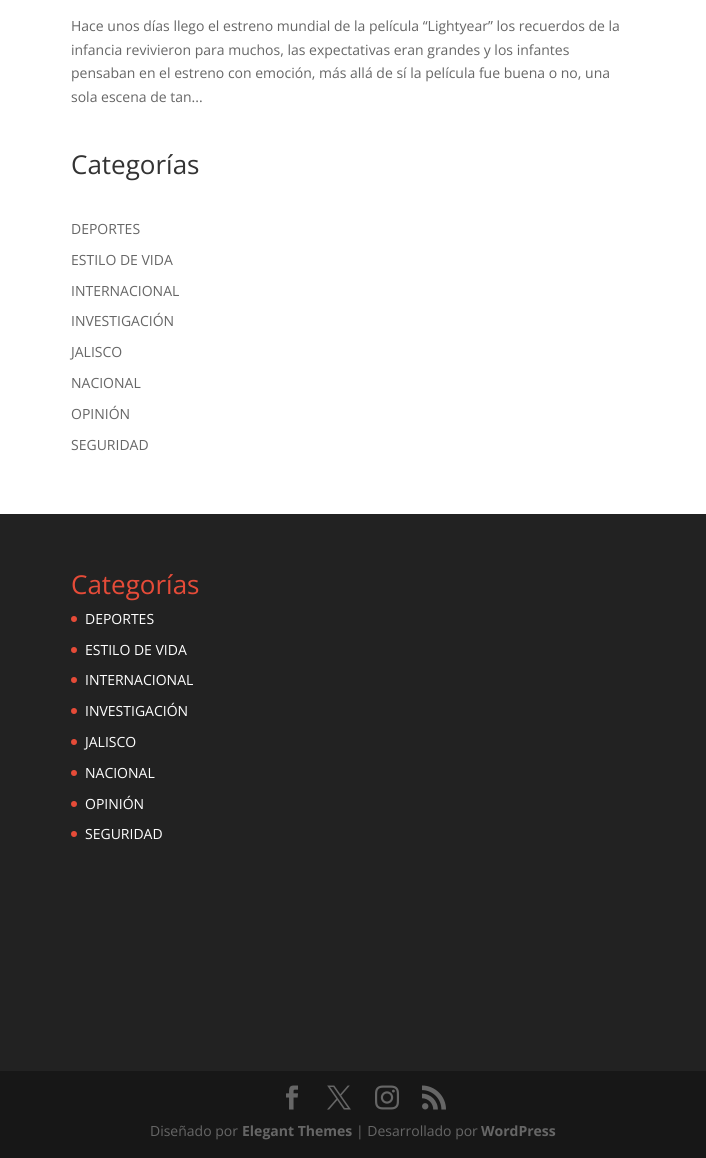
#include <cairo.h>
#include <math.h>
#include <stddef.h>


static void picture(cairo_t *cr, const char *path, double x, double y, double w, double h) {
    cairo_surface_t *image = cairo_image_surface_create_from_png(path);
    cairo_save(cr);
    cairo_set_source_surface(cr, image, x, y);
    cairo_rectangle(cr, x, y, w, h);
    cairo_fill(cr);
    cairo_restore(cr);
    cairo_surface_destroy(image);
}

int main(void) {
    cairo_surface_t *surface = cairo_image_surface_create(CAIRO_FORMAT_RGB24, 706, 1158);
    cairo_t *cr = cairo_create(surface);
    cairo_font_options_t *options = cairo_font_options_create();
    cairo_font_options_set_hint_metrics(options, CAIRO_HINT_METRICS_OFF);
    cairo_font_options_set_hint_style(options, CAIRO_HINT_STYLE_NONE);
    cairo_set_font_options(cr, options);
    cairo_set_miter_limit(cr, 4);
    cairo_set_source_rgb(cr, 1, 1, 1);
    cairo_paint(cr);
    cairo_select_font_face(cr, "Open Sans", CAIRO_FONT_SLANT_NORMAL, CAIRO_FONT_WEIGHT_NORMAL);
    cairo_set_font_size(cr, 14);
    cairo_set_source_rgb(cr, 0.4, 0.4, 0.4);
    cairo_move_to(cr, 71, 31);
    cairo_show_text(cr, "Hace unos días llego el estreno mundial de la película “Lightyear” los recuerdos de la");
    cairo_move_to(cr, 71, 55);
    cairo_show_text(cr, "infancia revivieron para muchos, las expectativas eran grandes y los infantes");
    cairo_move_to(cr, 71, 78);
    cairo_show_text(cr, "pensaban en el estreno con emoción, más allá de sí la película fue buena o no, una");
    cairo_move_to(cr, 71, 102);
    cairo_show_text(cr, "sola escena de tan...");
    cairo_set_font_size(cr, 26);
    cairo_set_source_rgb(cr, 0.2, 0.2, 0.2);
    cairo_move_to(cr, 71, 174);
    cairo_show_text(cr, "Categorías");
    cairo_set_font_size(cr, 14);
    cairo_set_source_rgb(cr, 0.4, 0.4, 0.4);
    cairo_move_to(cr, 71, 234);
    cairo_show_text(cr, "DEPORTES");
    cairo_move_to(cr, 71, 265);
    cairo_show_text(cr, "ESTILO DE VIDA");
    cairo_move_to(cr, 71, 296);
    cairo_show_text(cr, "INTERNACIONAL");
    cairo_move_to(cr, 71, 326);
    cairo_show_text(cr, "INVESTIGACIÓN");
    cairo_move_to(cr, 71, 357);
    cairo_show_text(cr, "JALISCO");
    cairo_move_to(cr, 71, 388);
    cairo_show_text(cr, "NACIONAL");
    cairo_move_to(cr, 71, 419);
    cairo_show_text(cr, "OPINIÓN");
    cairo_move_to(cr, 71, 450);
    cairo_show_text(cr, "SEGURIDAD");
    cairo_set_source_rgb(cr, 0.133, 0.133, 0.133);
    cairo_rectangle(cr, 0, 514, 706, 557);
    cairo_fill(cr);
    cairo_set_font_size(cr, 26);
    cairo_set_source_rgb(cr, 0.902, 0.294, 0.22);
    cairo_move_to(cr, 71, 594);
    cairo_show_text(cr, "Categorías");
    cairo_new_path(cr);
    cairo_arc(cr, 74, 619, 3, 0, 2 * M_PI);
    cairo_fill(cr);
    cairo_set_font_size(cr, 14);
    cairo_set_source_rgb(cr, 1, 1, 1);
    cairo_move_to(cr, 85, 624);
    cairo_show_text(cr, "DEPORTES");
    cairo_set_source_rgb(cr, 0.902, 0.294, 0.22);
    cairo_new_path(cr);
    cairo_arc(cr, 74, 650, 3, 0, 2 * M_PI);
    cairo_fill(cr);
    cairo_set_source_rgb(cr, 1, 1, 1);
    cairo_move_to(cr, 85, 655);
    cairo_show_text(cr, "ESTILO DE VIDA");
    cairo_set_source_rgb(cr, 0.902, 0.294, 0.22);
    cairo_new_path(cr);
    cairo_arc(cr, 74, 680, 3, 0, 2 * M_PI);
    cairo_fill(cr);
    cairo_set_source_rgb(cr, 1, 1, 1);
    cairo_move_to(cr, 85, 685);
    cairo_show_text(cr, "INTERNACIONAL");
    cairo_set_source_rgb(cr, 0.902, 0.294, 0.22);
    cairo_new_path(cr);
    cairo_arc(cr, 74, 711, 3, 0, 2 * M_PI);
    cairo_fill(cr);
    cairo_set_source_rgb(cr, 1, 1, 1);
    cairo_move_to(cr, 85, 716);
    cairo_show_text(cr, "INVESTIGACIÓN");
    cairo_set_source_rgb(cr, 0.902, 0.294, 0.22);
    cairo_new_path(cr);
    cairo_arc(cr, 74, 742, 3, 0, 2 * M_PI);
    cairo_fill(cr);
    cairo_set_source_rgb(cr, 1, 1, 1);
    cairo_move_to(cr, 85, 747);
    cairo_show_text(cr, "JALISCO");
    cairo_set_source_rgb(cr, 0.902, 0.294, 0.22);
    cairo_new_path(cr);
    cairo_arc(cr, 74, 773, 3, 0, 2 * M_PI);
    cairo_fill(cr);
    cairo_set_source_rgb(cr, 1, 1, 1);
    cairo_move_to(cr, 85, 778);
    cairo_show_text(cr, "NACIONAL");
    cairo_set_source_rgb(cr, 0.902, 0.294, 0.22);
    cairo_new_path(cr);
    cairo_arc(cr, 74, 804, 3, 0, 2 * M_PI);
    cairo_fill(cr);
    cairo_set_source_rgb(cr, 1, 1, 1);
    cairo_move_to(cr, 85, 809);
    cairo_show_text(cr, "OPINIÓN");
    cairo_set_source_rgb(cr, 0.902, 0.294, 0.22);
    cairo_new_path(cr);
    cairo_arc(cr, 74, 834, 3, 0, 2 * M_PI);
    cairo_fill(cr);
    cairo_set_source_rgb(cr, 1, 1, 1);
    cairo_move_to(cr, 85, 839);
    cairo_show_text(cr, "SEGURIDAD");
    cairo_set_source_rgb(cr, 0.09, 0.09, 0.09);
    cairo_rectangle(cr, 0, 1071, 706, 87);
    cairo_fill(cr);
    picture(cr, "img1.png", 286, 1085, 12, 25);
    picture(cr, "img2.png", 327, 1085, 24, 25);
    picture(cr, "img3.png", 375, 1085, 24, 25);
    picture(cr, "img4.png", 422, 1085, 24, 25);
    cairo_set_source_rgb(cr, 0.4, 0.4, 0.4);
    cairo_move_to(cr, 150, 1136);
    cairo_show_text(cr, "Diseñado por");
    cairo_select_font_face(cr, "Open Sans", CAIRO_FONT_SLANT_NORMAL, CAIRO_FONT_WEIGHT_BOLD);
    cairo_move_to(cr, 242, 1136);
    cairo_show_text(cr, "Elegant Themes");
    cairo_select_font_face(cr, "Open Sans", CAIRO_FONT_SLANT_NORMAL, CAIRO_FONT_WEIGHT_NORMAL);
    cairo_move_to(cr, 356, 1136);
    cairo_show_text(cr, "| Desarrollado por");
    cairo_select_font_face(cr, "Open Sans", CAIRO_FONT_SLANT_NORMAL, CAIRO_FONT_WEIGHT_BOLD);
    cairo_move_to(cr, 481, 1136);
    cairo_show_text(cr, "WordPress");
    cairo_surface_write_to_png(surface, "page.png");
    cairo_font_options_destroy(options);
    cairo_destroy(cr);
    cairo_surface_destroy(surface);
    return 0;
}
